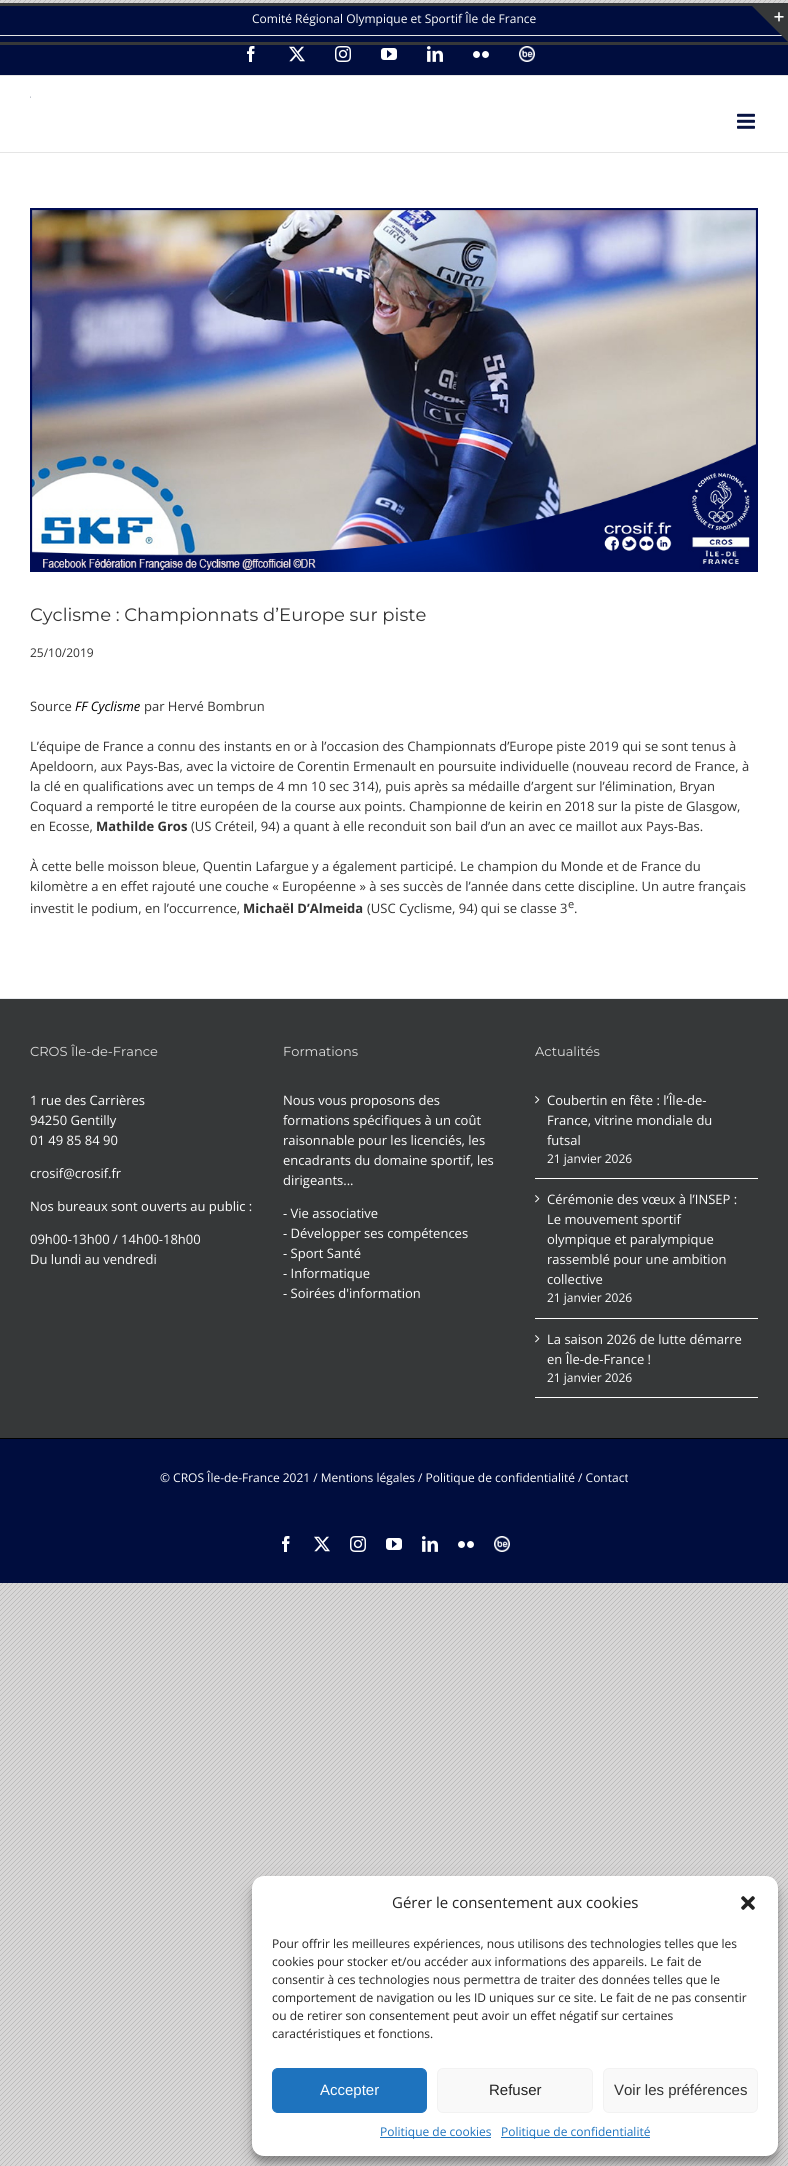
#include <cairo.h>
#include <math.h>
#include <stddef.h>


static void round_rect(cairo_t *cr, double x, double y, double w, double h, double r) {
    cairo_new_sub_path(cr);
    cairo_arc(cr, x + w - r, y + h - r, r, 0, M_PI / 2);
    cairo_arc(cr, x + r, y + h - r, r, M_PI / 2, M_PI);
    cairo_arc(cr, x + r, y + r, r, M_PI, 1.5 * M_PI);
    cairo_arc(cr, x + w - r, y + r, r, 1.5 * M_PI, 2 * M_PI);
    cairo_close_path(cr);
}

static void shadow(cairo_t *cr, double x, double y, double w, double h, double r, double blur, double alpha) {
    cairo_push_group_with_content(cr, CAIRO_CONTENT_ALPHA);
    cairo_set_operator(cr, CAIRO_OPERATOR_SOURCE);
    for (int i = 15; i >= -15 && fmin(w, h) + blur * i / 3 > 0; i -= 2) {
        double e = blur * i / 6;
        cairo_set_source_rgba(cr, 0, 0, 0, alpha * erfc((i - 1) / 8.5) / 2);
        round_rect(cr, x - e, y - e, w + 2 * e, h + 2 * e, fmax(0, fmin(r + e + blur * .6, fmin(w, h) / 2 + e)));
        cairo_fill(cr);
    }
    cairo_pattern_t *soft = cairo_pop_group(cr);
    cairo_mask(cr, soft);
    cairo_pattern_destroy(soft);
}

static void picture(cairo_t *cr, const char *path, double x, double y, double w, double h) {
    cairo_surface_t *image = cairo_image_surface_create_from_png(path);
    cairo_save(cr);
    cairo_set_source_surface(cr, image, x, y);
    cairo_rectangle(cr, x, y, w, h);
    cairo_fill(cr);
    cairo_restore(cr);
    cairo_surface_destroy(image);
}

int main(void) {
    cairo_surface_t *surface = cairo_image_surface_create(CAIRO_FORMAT_RGB24, 788, 2166);
    cairo_t *cr = cairo_create(surface);
    cairo_font_options_t *options = cairo_font_options_create();
    cairo_font_options_set_hint_metrics(options, CAIRO_HINT_METRICS_OFF);
    cairo_font_options_set_hint_style(options, CAIRO_HINT_STYLE_NONE);
    cairo_set_font_options(cr, options);
    cairo_set_miter_limit(cr, 4);
    cairo_set_source_rgb(cr, 1, 1, 1);
    cairo_paint(cr);
    picture(cr, "img1.png", 0, 0, 788, 2166);
    cairo_set_source_rgb(cr, 1, 1, 1);
    cairo_rectangle(cr, 0, 76, 788, 922);
    cairo_fill(cr);
    cairo_set_source_rgb(cr, 0.212, 0.22, 0.224);
    cairo_rectangle(cr, 0, 3, 788, 3);
    cairo_fill(cr);
    cairo_set_source_rgb(cr, 0, 0.051, 0.243);
    cairo_rectangle(cr, 0, 6, 788, 69);
    cairo_fill(cr);
    cairo_set_source_rgb(cr, 0.212, 0.22, 0.224);
    cairo_rectangle(cr, 0, 42, 788, 3);
    cairo_fill(cr);
    cairo_set_source_rgb(cr, 0.898, 0.898, 0.898);
    cairo_rectangle(cr, 0, 35, 788, 1);
    cairo_fill(cr);
    cairo_set_source_rgb(cr, 0.212, 0.22, 0.224);
    cairo_new_path(cr);
    cairo_move_to(cr, 752, 6);
    cairo_line_to(cr, 788, 6);
    cairo_line_to(cr, 788, 42);
    cairo_close_path(cr);
    cairo_fill(cr);
    picture(cr, "img2.png", 774, 12, 10, 10);
    cairo_set_source_rgb(cr, 0.898, 0.898, 0.898);
    cairo_rectangle(cr, 0, 75, 788, 1);
    cairo_fill(cr);
    cairo_select_font_face(cr, "Open Sans", CAIRO_FONT_SLANT_NORMAL, CAIRO_FONT_WEIGHT_NORMAL);
    cairo_set_font_size(cr, 12);
    cairo_set_source_rgb(cr, 1, 1, 1);
    cairo_move_to(cr, 252, 23);
    cairo_show_text(cr, "Comité Régional Olympique et Sportif Île de France");
    picture(cr, "img3.png", 247, 46, 8, 16);
    picture(cr, "img4.png", 289, 46, 16, 16);
    picture(cr, "img5.png", 335, 46, 16, 16);
    picture(cr, "img6.png", 381, 48, 16, 12);
    picture(cr, "img7.png", 427, 46, 16, 16);
    picture(cr, "img8.png", 473, 51, 16, 7);
    picture(cr, "img9.png", 519, 46, 16, 16);
    cairo_set_source_rgb(cr, 0.898, 0.898, 0.898);
    cairo_rectangle(cr, 0, 152, 788, 1);
    cairo_fill(cr);
    picture(cr, "img10.png", 30, 96, 1, 2);
    picture(cr, "img11.png", 737, 113, 18, 16);
    picture(cr, "img12.png", 30, 208, 728, 364);
    cairo_select_font_face(cr, "Montserrat Thin", CAIRO_FONT_SLANT_NORMAL, CAIRO_FONT_WEIGHT_NORMAL);
    cairo_set_font_size(cr, 18);
    cairo_set_source_rgb(cr, 0.2, 0.2, 0.2);
    cairo_move_to(cr, 30, 621);
    cairo_show_text(cr, "Cyclisme : Championnats d’Europe sur piste");
    cairo_select_font_face(cr, "Open Sans", CAIRO_FONT_SLANT_NORMAL, CAIRO_FONT_WEIGHT_NORMAL);
    cairo_set_font_size(cr, 12);
    cairo_move_to(cr, 30, 657);
    cairo_show_text(cr, "25/10/2019");
    cairo_set_font_size(cr, 13);
    cairo_move_to(cr, 30, 711);
    cairo_show_text(cr, "Source");
    cairo_select_font_face(cr, "Open Sans", CAIRO_FONT_SLANT_ITALIC, CAIRO_FONT_WEIGHT_NORMAL);
    cairo_set_source_rgb(cr, 0, 0, 0);
    cairo_move_to(cr, 75, 711);
    cairo_show_text(cr, "FF Cyclisme");
    cairo_select_font_face(cr, "Open Sans", CAIRO_FONT_SLANT_NORMAL, CAIRO_FONT_WEIGHT_NORMAL);
    cairo_set_source_rgb(cr, 0.2, 0.2, 0.2);
    cairo_move_to(cr, 144, 711);
    cairo_show_text(cr, "par Hervé Bombrun");
    cairo_move_to(cr, 30, 751);
    cairo_show_text(cr, "L’équipe de France a connu des instants en or à l’occasion des Championnats d’Europe piste 2019 qui se sont tenus à");
    cairo_move_to(cr, 30, 771);
    cairo_show_text(cr, "Apeldoorn, aux Pays-Bas, avec la victoire de Corentin Ermenault en poursuite individuelle (nouveau record de France, à");
    cairo_move_to(cr, 30, 791);
    cairo_show_text(cr, "la clé en qualifications avec un temps de 4 mn 10 sec 314), puis après sa médaille d’argent sur l’élimination, Bryan");
    cairo_move_to(cr, 30, 811);
    cairo_show_text(cr, "Coquard a remporté le titre européen de la course aux points. Championne de keirin en 2018 sur la piste de Glasgow,");
    cairo_move_to(cr, 30, 831);
    cairo_show_text(cr, "en Ecosse,");
    cairo_select_font_face(cr, "Open Sans", CAIRO_FONT_SLANT_NORMAL, CAIRO_FONT_WEIGHT_BOLD);
    cairo_move_to(cr, 96, 831);
    cairo_show_text(cr, "Mathilde Gros");
    cairo_select_font_face(cr, "Open Sans", CAIRO_FONT_SLANT_NORMAL, CAIRO_FONT_WEIGHT_NORMAL);
    cairo_move_to(cr, 191, 831);
    cairo_show_text(cr, "(US Créteil, 94) a quant à elle reconduit son bail d’un an avec ce maillot aux Pays-Bas.");
    cairo_move_to(cr, 30, 871);
    cairo_show_text(cr, "À cette belle moisson bleue, Quentin Lafargue y a également participé. Le champion du Monde et de France du");
    cairo_move_to(cr, 30, 891);
    cairo_show_text(cr, "kilomètre a en effet rajouté une couche « Européenne » à ses succès de l’année dans cette discipline. Un autre français");
    cairo_move_to(cr, 30, 913);
    cairo_show_text(cr, "investit le podium, en l’occurrence,");
    cairo_select_font_face(cr, "Open Sans", CAIRO_FONT_SLANT_NORMAL, CAIRO_FONT_WEIGHT_BOLD);
    cairo_move_to(cr, 243, 913);
    cairo_show_text(cr, "Michaël D’Almeida");
    cairo_select_font_face(cr, "Open Sans", CAIRO_FONT_SLANT_NORMAL, CAIRO_FONT_WEIGHT_NORMAL);
    cairo_move_to(cr, 367, 913);
    cairo_show_text(cr, "(USC Cyclisme, 94) qui se classe 3");
    cairo_set_font_size(cr, 11);
    cairo_move_to(cr, 568, 908);
    cairo_show_text(cr, "e");
    cairo_set_font_size(cr, 13);
    cairo_move_to(cr, 574, 913);
    cairo_show_text(cr, ".");
    cairo_set_source_rgb(cr, 0.212, 0.22, 0.224);
    cairo_rectangle(cr, 0, 999, 788, 439);
    cairo_fill(cr);
    cairo_set_source_rgb(cr, 0.914, 0.918, 0.933);
    cairo_rectangle(cr, 0, 998, 788, 1);
    cairo_fill(cr);
    cairo_select_font_face(cr, "Montserrat Thin", CAIRO_FONT_SLANT_NORMAL, CAIRO_FONT_WEIGHT_NORMAL);
    cairo_set_source_rgb(cr, 0.867, 0.867, 0.867);
    cairo_move_to(cr, 30, 1056);
    cairo_show_text(cr, "CROS Île-de-France");
    cairo_select_font_face(cr, "Open Sans", CAIRO_FONT_SLANT_NORMAL, CAIRO_FONT_WEIGHT_NORMAL);
    cairo_set_source_rgb(cr, 1, 1, 1);
    cairo_move_to(cr, 30, 1105);
    cairo_show_text(cr, "1 rue des Carrières");
    cairo_move_to(cr, 30, 1125);
    cairo_show_text(cr, "94250 Gentilly");
    cairo_move_to(cr, 30, 1145);
    cairo_show_text(cr, "01 49 85 84 90");
    cairo_move_to(cr, 30, 1178);
    cairo_show_text(cr, "crosif@crosif.fr");
    cairo_move_to(cr, 30, 1211);
    cairo_show_text(cr, "Nos bureaux sont ouverts au public :");
    cairo_move_to(cr, 30, 1244);
    cairo_show_text(cr, "09h00-13h00 / 14h00-18h00");
    cairo_move_to(cr, 30, 1264);
    cairo_show_text(cr, "Du lundi au vendredi");
    cairo_select_font_face(cr, "Montserrat Thin", CAIRO_FONT_SLANT_NORMAL, CAIRO_FONT_WEIGHT_NORMAL);
    cairo_set_source_rgb(cr, 0.867, 0.867, 0.867);
    cairo_move_to(cr, 283, 1056);
    cairo_show_text(cr, "Formations");
    cairo_select_font_face(cr, "Open Sans", CAIRO_FONT_SLANT_NORMAL, CAIRO_FONT_WEIGHT_NORMAL);
    cairo_set_source_rgb(cr, 1, 1, 1);
    cairo_move_to(cr, 283, 1105);
    cairo_show_text(cr, "Nous vous proposons des");
    cairo_move_to(cr, 283, 1125);
    cairo_show_text(cr, "formations spécifiques à un coût");
    cairo_move_to(cr, 283, 1145);
    cairo_show_text(cr, "raisonnable pour les licenciés, les");
    cairo_move_to(cr, 283, 1165);
    cairo_show_text(cr, "encadrants du domaine sportif, les");
    cairo_move_to(cr, 283, 1185);
    cairo_show_text(cr, "dirigeants...");
    cairo_move_to(cr, 283, 1218);
    cairo_show_text(cr, "- Vie associative");
    cairo_move_to(cr, 283, 1238);
    cairo_show_text(cr, "- Développer ses compétences");
    cairo_move_to(cr, 283, 1258);
    cairo_show_text(cr, "- Sport Santé");
    cairo_move_to(cr, 283, 1278);
    cairo_show_text(cr, "- Informatique");
    cairo_move_to(cr, 283, 1298);
    cairo_show_text(cr, "- Soirées d'information");
    cairo_select_font_face(cr, "Montserrat Thin", CAIRO_FONT_SLANT_NORMAL, CAIRO_FONT_WEIGHT_NORMAL);
    cairo_set_source_rgb(cr, 0.867, 0.867, 0.867);
    cairo_move_to(cr, 535, 1056);
    cairo_show_text(cr, "Actualités");
    cairo_set_source_rgb(cr, 1, 1, 1);
    cairo_rectangle(cr, 535, 1178, 223, 1);
    cairo_fill(cr);
    picture(cr, "img13.png", 535, 1096, 5, 8);
    cairo_select_font_face(cr, "Open Sans", CAIRO_FONT_SLANT_NORMAL, CAIRO_FONT_WEIGHT_NORMAL);
    cairo_move_to(cr, 547, 1105);
    cairo_show_text(cr, "Coubertin en fête : l’Île-de-");
    cairo_move_to(cr, 547, 1125);
    cairo_show_text(cr, "France, vitrine mondiale du");
    cairo_move_to(cr, 547, 1145);
    cairo_show_text(cr, "futsal");
    cairo_set_font_size(cr, 12);
    cairo_move_to(cr, 547, 1163);
    cairo_show_text(cr, "21 janvier 2026");
    cairo_rectangle(cr, 535, 1318, 223, 1);
    cairo_fill(cr);
    picture(cr, "img13.png", 535, 1195, 5, 8);
    cairo_set_font_size(cr, 13);
    cairo_move_to(cr, 547, 1204);
    cairo_show_text(cr, "Cérémonie des vœux à l’INSEP :");
    cairo_move_to(cr, 547, 1224);
    cairo_show_text(cr, "Le mouvement sportif");
    cairo_move_to(cr, 547, 1244);
    cairo_show_text(cr, "olympique et paralympique");
    cairo_move_to(cr, 547, 1264);
    cairo_show_text(cr, "rassemblé pour une ambition");
    cairo_move_to(cr, 547, 1284);
    cairo_show_text(cr, "collective");
    cairo_set_font_size(cr, 12);
    cairo_move_to(cr, 547, 1302);
    cairo_show_text(cr, "21 janvier 2026");
    cairo_rectangle(cr, 535, 1397, 223, 1);
    cairo_fill(cr);
    picture(cr, "img13.png", 535, 1335, 5, 8);
    cairo_set_font_size(cr, 13);
    cairo_move_to(cr, 547, 1344);
    cairo_show_text(cr, "La saison 2026 de lutte démarre");
    cairo_move_to(cr, 547, 1364);
    cairo_show_text(cr, "en Île-de-France !");
    cairo_set_font_size(cr, 12);
    cairo_move_to(cr, 547, 1382);
    cairo_show_text(cr, "21 janvier 2026");
    cairo_set_source_rgb(cr, 0, 0.051, 0.243);
    cairo_rectangle(cr, 0, 1439, 788, 144);
    cairo_fill(cr);
    cairo_set_source_rgb(cr, 0, 0, 0);
    cairo_rectangle(cr, 0, 1438, 788, 1);
    cairo_fill(cr);
    cairo_set_source_rgb(cr, 1, 1, 1);
    cairo_move_to(cr, 160, 1482);
    cairo_show_text(cr, "© CROS Île-de-France 2021 / Mentions légales / Politique de confidentialité / Contact");
    picture(cr, "img3.png", 282, 1536, 8, 16);
    picture(cr, "img4.png", 314, 1536, 16, 16);
    picture(cr, "img5.png", 350, 1536, 16, 16);
    picture(cr, "img6.png", 386, 1538, 16, 12);
    picture(cr, "img7.png", 422, 1536, 16, 16);
    picture(cr, "img8.png", 458, 1541, 16, 7);
    picture(cr, "img9.png", 494, 1536, 16, 16);
    cairo_set_source_rgb(cr, 0, 0, 0);
    shadow(cr, 252, 1882, 526, 280, 12, 3, 0.23);
    shadow(cr, 252, 1886, 526, 280, 12, 10, 0.19);
    cairo_set_source_rgb(cr, 1, 1, 1);
    round_rect(cr, 252, 1876, 526, 280, 12);
    cairo_fill(cr);
    cairo_set_font_size(cr, 15);
    cairo_set_source_rgb(cr, 0.133, 0.133, 0.133);
    cairo_move_to(cr, 392, 1908);
    cairo_show_text(cr, "Gérer le consentement aux cookies");
    picture(cr, "img14.png", 741, 1896, 14, 14);
    cairo_set_font_size(cr, 12);
    cairo_move_to(cr, 272, 1948);
    cairo_show_text(cr, "Pour offrir les meilleures expériences, nous utilisons des technologies telles que les");
    cairo_move_to(cr, 272, 1966);
    cairo_show_text(cr, "cookies pour stocker et/ou accéder aux informations des appareils. Le fait de");
    cairo_move_to(cr, 272, 1984);
    cairo_show_text(cr, "consentir à ces technologies nous permettra de traiter des données telles que le");
    cairo_move_to(cr, 272, 2002);
    cairo_show_text(cr, "comportement de navigation ou les ID uniques sur ce site. Le fait de ne pas consentir");
    cairo_move_to(cr, 272, 2020);
    cairo_show_text(cr, "ou de retirer son consentement peut avoir un effet négatif sur certaines");
    cairo_move_to(cr, 272, 2038);
    cairo_show_text(cr, "caractéristiques et fonctions.");
    cairo_set_source_rgb(cr, 0.118, 0.451, 0.745);
    round_rect(cr, 272.5, 2068.5, 154, 44, 5.5);
    cairo_fill_preserve(cr);
    cairo_set_line_width(cr, 1);
    cairo_stroke(cr);
    cairo_select_font_face(cr, "Liberation Sans", CAIRO_FONT_SLANT_NORMAL, CAIRO_FONT_WEIGHT_NORMAL);
    cairo_set_font_size(cr, 15);
    cairo_set_source_rgb(cr, 1, 1, 1);
    cairo_move_to(cr, 320, 2095);
    cairo_show_text(cr, "Accepter");
    cairo_set_source_rgb(cr, 0.976, 0.976, 0.976);
    round_rect(cr, 437.5, 2068.5, 155, 44, 5.5);
    cairo_fill_preserve(cr);
    cairo_set_source_rgb(cr, 0.949, 0.949, 0.949);
    cairo_stroke(cr);
    cairo_set_source_rgb(cr, 0.133, 0.133, 0.133);
    cairo_move_to(cr, 489, 2095);
    cairo_show_text(cr, "Refuser");
    cairo_set_source_rgb(cr, 0.976, 0.976, 0.976);
    round_rect(cr, 603.5, 2068.5, 154, 44, 5.5);
    cairo_fill_preserve(cr);
    cairo_set_source_rgb(cr, 0.949, 0.949, 0.949);
    cairo_stroke(cr);
    cairo_set_source_rgb(cr, 0.2, 0.2, 0.2);
    cairo_move_to(cr, 614, 2095);
    cairo_show_text(cr, "Voir les préférences");
    cairo_set_source_rgb(cr, 0.118, 0.451, 0.745);
    cairo_rectangle(cr, 380, 2137, 111, 1);
    cairo_fill(cr);
    cairo_select_font_face(cr, "Open Sans", CAIRO_FONT_SLANT_NORMAL, CAIRO_FONT_WEIGHT_NORMAL);
    cairo_set_font_size(cr, 12);
    cairo_move_to(cr, 380, 2136);
    cairo_show_text(cr, "Politique de cookies");
    cairo_rectangle(cr, 501, 2137, 149, 1);
    cairo_fill(cr);
    cairo_move_to(cr, 501, 2136);
    cairo_show_text(cr, "Politique de confidentialité");
    cairo_surface_write_to_png(surface, "page.png");
    cairo_font_options_destroy(options);
    cairo_destroy(cr);
    cairo_surface_destroy(surface);
    return 0;
}
